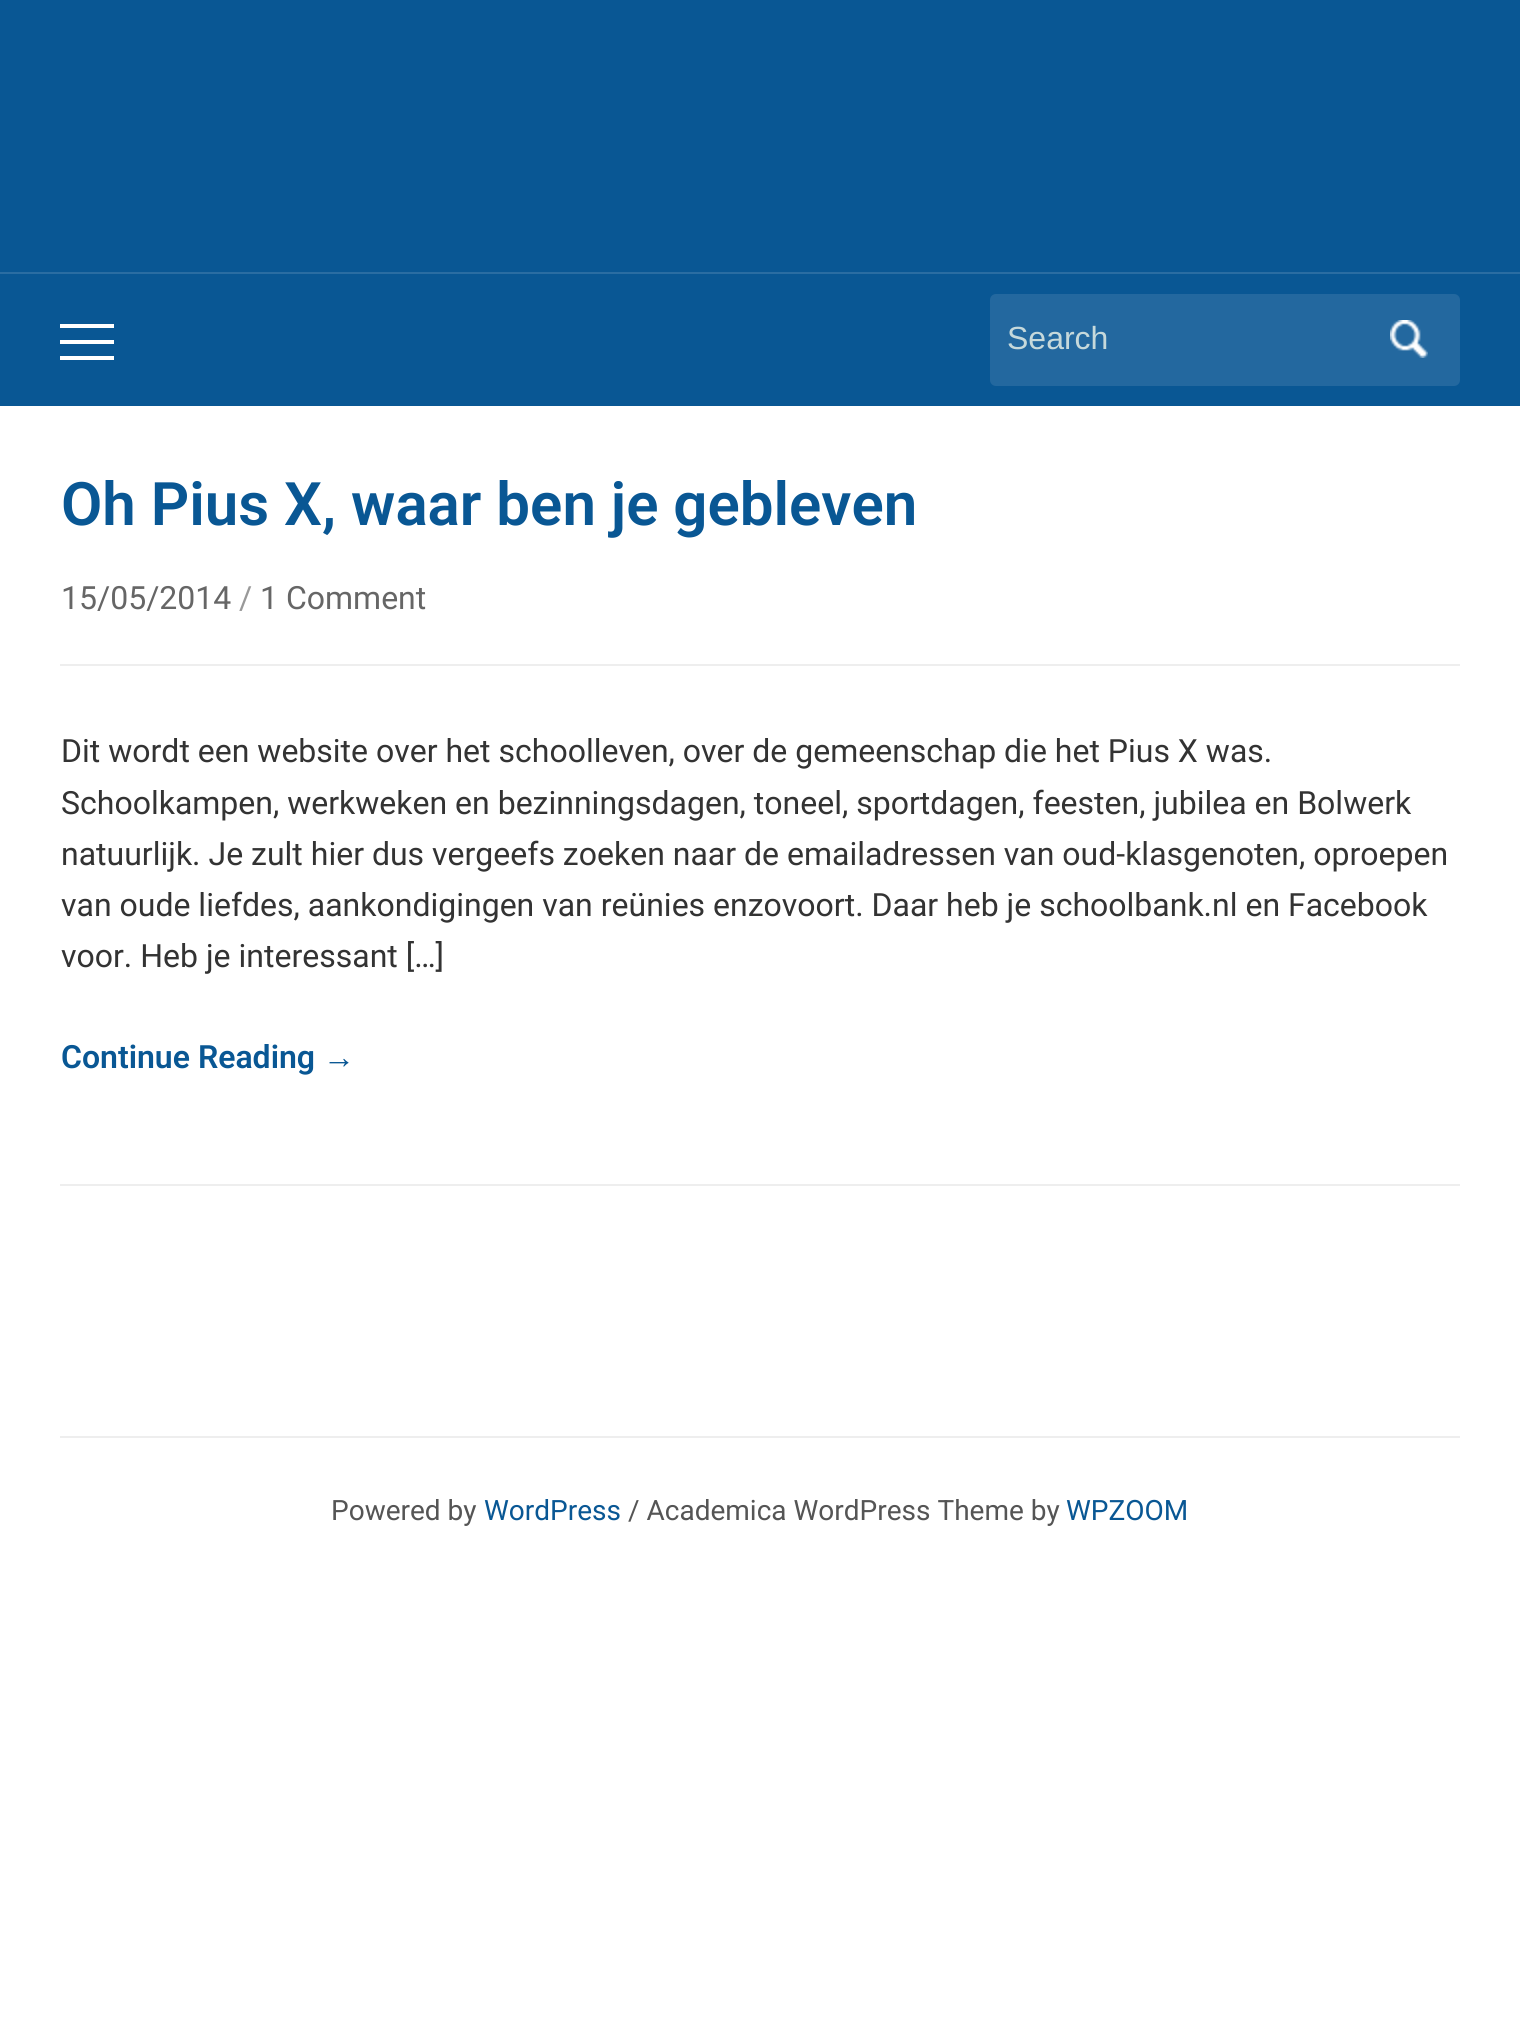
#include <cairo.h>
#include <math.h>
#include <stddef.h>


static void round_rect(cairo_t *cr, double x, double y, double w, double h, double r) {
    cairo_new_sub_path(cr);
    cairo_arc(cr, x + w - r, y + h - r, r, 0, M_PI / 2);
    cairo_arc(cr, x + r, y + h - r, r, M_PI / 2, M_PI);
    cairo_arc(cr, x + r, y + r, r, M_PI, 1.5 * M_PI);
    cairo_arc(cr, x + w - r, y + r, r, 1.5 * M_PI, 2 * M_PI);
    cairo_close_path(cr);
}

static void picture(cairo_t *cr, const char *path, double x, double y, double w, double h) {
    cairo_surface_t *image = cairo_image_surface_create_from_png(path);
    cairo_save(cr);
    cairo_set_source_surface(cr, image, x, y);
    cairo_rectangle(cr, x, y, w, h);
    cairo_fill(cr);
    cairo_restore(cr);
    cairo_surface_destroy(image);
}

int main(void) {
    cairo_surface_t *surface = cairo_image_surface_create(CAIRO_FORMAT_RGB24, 1520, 2036);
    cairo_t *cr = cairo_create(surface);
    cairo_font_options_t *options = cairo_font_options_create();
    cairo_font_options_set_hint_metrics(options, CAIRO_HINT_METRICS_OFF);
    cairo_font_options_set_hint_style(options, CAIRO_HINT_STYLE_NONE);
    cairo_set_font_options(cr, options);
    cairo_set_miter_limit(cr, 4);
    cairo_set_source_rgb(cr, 1, 1, 1);
    cairo_paint(cr);
    cairo_set_source_rgb(cr, 0.039, 0.341, 0.58);
    cairo_rectangle(cr, 0, 0, 1520, 406);
    cairo_fill(cr);
    cairo_set_source_rgb(cr, 0.165, 0.427, 0.635);
    cairo_rectangle(cr, 0, 272, 1520, 2);
    cairo_fill(cr);
    cairo_set_source_rgb(cr, 1, 1, 1);
    cairo_rectangle(cr, 60, 324, 54, 4);
    cairo_fill(cr);
    cairo_rectangle(cr, 60, 340, 54, 4);
    cairo_fill(cr);
    cairo_rectangle(cr, 60, 356, 54, 4);
    cairo_fill(cr);
    cairo_set_source_rgb(cr, 0.137, 0.408, 0.624);
    round_rect(cr, 990, 294, 470, 92, 6);
    cairo_fill(cr);
    cairo_select_font_face(cr, "Liberation Sans", CAIRO_FONT_SLANT_NORMAL, CAIRO_FONT_WEIGHT_NORMAL);
    cairo_set_font_size(cr, 32);
    cairo_set_source_rgb(cr, 0.776, 0.851, 0.859);
    cairo_move_to(cr, 1007, 349);
    cairo_show_text(cr, "Search");
    picture(cr, "img1.png", 1390, 320, 38, 38);
    cairo_set_source_rgb(cr, 0.933, 0.933, 0.933);
    cairo_rectangle(cr, 60, 1184, 1400, 2);
    cairo_fill(cr);
    cairo_select_font_face(cr, "Roboto SemiBold", CAIRO_FONT_SLANT_NORMAL, CAIRO_FONT_WEIGHT_NORMAL);
    cairo_set_font_size(cr, 60);
    cairo_set_source_rgb(cr, 0.039, 0.341, 0.58);
    cairo_move_to(cr, 61, 525);
    cairo_show_text(cr, "Oh Pius X, waar ben je gebleven");
    cairo_set_source_rgb(cr, 0.933, 0.933, 0.933);
    cairo_rectangle(cr, 60, 664, 1400, 2);
    cairo_fill(cr);
    cairo_select_font_face(cr, "Roboto", CAIRO_FONT_SLANT_NORMAL, CAIRO_FONT_WEIGHT_NORMAL);
    cairo_set_font_size(cr, 32);
    cairo_set_source_rgb(cr, 0.4, 0.4, 0.4);
    cairo_move_to(cr, 61, 609);
    cairo_show_text(cr, "15/05/2014");
    cairo_set_source_rgb(cr, 0.6, 0.6, 0.6);
    cairo_move_to(cr, 239, 609);
    cairo_show_text(cr, "/");
    cairo_set_source_rgb(cr, 0.4, 0.4, 0.4);
    cairo_move_to(cr, 260, 609);
    cairo_show_text(cr, "1 Comment");
    cairo_set_source_rgb(cr, 0.2, 0.2, 0.2);
    cairo_move_to(cr, 61, 762);
    cairo_show_text(cr, "Dit wordt een website over het schoolleven, over de gemeenschap die het Pius X was.");
    cairo_move_to(cr, 61, 814);
    cairo_show_text(cr, "Schoolkampen, werkweken en bezinningsdagen, toneel, sportdagen, feesten, jubilea en Bolwerk");
    cairo_move_to(cr, 61, 865);
    cairo_show_text(cr, "natuurlijk. Je zult hier dus vergeefs zoeken naar de emailadressen van oud-klasgenoten, oproepen");
    cairo_move_to(cr, 61, 916);
    cairo_show_text(cr, "van oude liefdes, aankondigingen van reünies enzovoort. Daar heb je schoolbank.nl en Facebook");
    cairo_move_to(cr, 61, 967);
    cairo_show_text(cr, "voor. Heb je interessant […]");
    cairo_select_font_face(cr, "Roboto SemiBold", CAIRO_FONT_SLANT_NORMAL, CAIRO_FONT_WEIGHT_NORMAL);
    cairo_set_source_rgb(cr, 0.039, 0.341, 0.58);
    cairo_move_to(cr, 61, 1068);
    cairo_show_text(cr, "Continue Reading");
    cairo_select_font_face(cr, "Liberation Sans", CAIRO_FONT_SLANT_NORMAL, CAIRO_FONT_WEIGHT_BOLD);
    cairo_move_to(cr, 323, 1068);
    cairo_show_text(cr, "→");
    cairo_set_source_rgb(cr, 0.933, 0.933, 0.933);
    cairo_rectangle(cr, 60, 1436, 1400, 2);
    cairo_fill(cr);
    cairo_select_font_face(cr, "Roboto", CAIRO_FONT_SLANT_NORMAL, CAIRO_FONT_WEIGHT_NORMAL);
    cairo_set_font_size(cr, 28);
    cairo_set_source_rgb(cr, 0.333, 0.333, 0.333);
    cairo_move_to(cr, 331, 1520);
    cairo_show_text(cr, "Powered by");
    cairo_set_source_rgb(cr, 0.039, 0.341, 0.58);
    cairo_move_to(cr, 484, 1520);
    cairo_show_text(cr, "WordPress");
    cairo_set_source_rgb(cr, 0.333, 0.333, 0.333);
    cairo_move_to(cr, 628, 1520);
    cairo_show_text(cr, "/ Academica WordPress Theme by");
    cairo_set_source_rgb(cr, 0.039, 0.341, 0.58);
    cairo_move_to(cr, 1066, 1520);
    cairo_show_text(cr, "WPZOOM");
    cairo_surface_write_to_png(surface, "page.png");
    cairo_font_options_destroy(options);
    cairo_destroy(cr);
    cairo_surface_destroy(surface);
    return 0;
}
